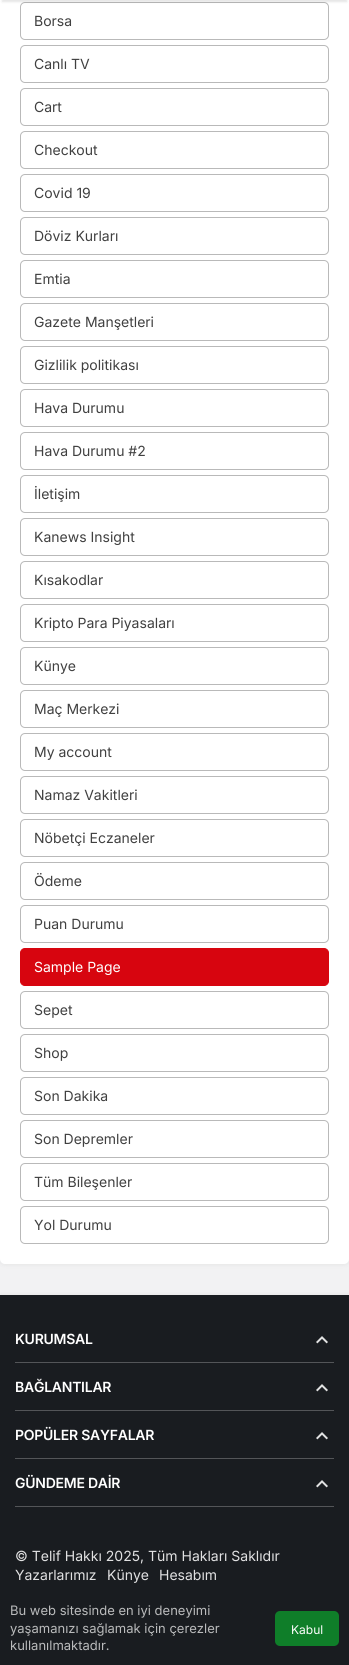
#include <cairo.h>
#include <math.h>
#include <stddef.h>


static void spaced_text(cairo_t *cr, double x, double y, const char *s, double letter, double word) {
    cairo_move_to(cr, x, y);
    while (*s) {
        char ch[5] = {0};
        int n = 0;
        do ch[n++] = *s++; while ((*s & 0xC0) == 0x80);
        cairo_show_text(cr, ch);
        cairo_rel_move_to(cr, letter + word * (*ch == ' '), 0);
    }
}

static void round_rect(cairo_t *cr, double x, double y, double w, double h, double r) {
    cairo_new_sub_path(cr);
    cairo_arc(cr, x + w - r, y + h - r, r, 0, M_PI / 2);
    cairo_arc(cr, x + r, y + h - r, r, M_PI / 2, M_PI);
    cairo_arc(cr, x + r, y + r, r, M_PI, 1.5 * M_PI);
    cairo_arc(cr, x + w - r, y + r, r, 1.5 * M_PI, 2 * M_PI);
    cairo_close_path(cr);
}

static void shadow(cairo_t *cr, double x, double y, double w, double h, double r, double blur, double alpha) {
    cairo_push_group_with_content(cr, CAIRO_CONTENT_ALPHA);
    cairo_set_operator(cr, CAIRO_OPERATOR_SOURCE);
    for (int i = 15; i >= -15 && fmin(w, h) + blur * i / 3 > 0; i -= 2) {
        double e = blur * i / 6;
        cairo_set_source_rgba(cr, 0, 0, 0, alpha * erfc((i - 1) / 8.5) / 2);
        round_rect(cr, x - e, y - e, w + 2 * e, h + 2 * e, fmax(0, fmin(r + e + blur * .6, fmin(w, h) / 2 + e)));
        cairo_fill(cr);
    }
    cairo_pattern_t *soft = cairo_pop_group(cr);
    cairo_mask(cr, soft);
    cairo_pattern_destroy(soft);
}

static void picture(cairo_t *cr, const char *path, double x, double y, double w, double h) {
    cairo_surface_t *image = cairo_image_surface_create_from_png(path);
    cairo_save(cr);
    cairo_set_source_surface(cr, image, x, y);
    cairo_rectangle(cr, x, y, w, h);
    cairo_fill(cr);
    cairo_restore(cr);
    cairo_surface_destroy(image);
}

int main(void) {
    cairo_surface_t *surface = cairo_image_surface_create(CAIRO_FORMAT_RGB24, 349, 1665);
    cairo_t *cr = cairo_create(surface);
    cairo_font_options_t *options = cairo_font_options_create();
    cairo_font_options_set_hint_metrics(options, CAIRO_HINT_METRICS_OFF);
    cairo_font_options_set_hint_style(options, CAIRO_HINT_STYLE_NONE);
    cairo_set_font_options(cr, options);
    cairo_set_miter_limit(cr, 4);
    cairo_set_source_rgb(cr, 0.949, 0.949, 0.953);
    cairo_paint(cr);
    cairo_set_source_rgb(cr, 0.196, 0.208, 0.239);
    shadow(cr, 0, -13, 349, 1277, 5, 2.5, 0.1);
    cairo_set_source_rgb(cr, 1, 1, 1);
    round_rect(cr, 0, -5, 349, 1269, 5);
    cairo_fill(cr);
    round_rect(cr, 20.5, 2.5, 308, 37, 4.5);
    cairo_set_source_rgb(cr, 0.725, 0.725, 0.725);
    cairo_set_line_width(cr, 1);
    cairo_stroke(cr);
    cairo_set_source_rgb(cr, 0, 0, 0);
    shadow(cr, 2, -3, 345, 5, 0, 1, 0.1);
    cairo_select_font_face(cr, "Inter", CAIRO_FONT_SLANT_NORMAL, CAIRO_FONT_WEIGHT_NORMAL);
    cairo_set_font_size(cr, 14);
    cairo_set_source_rgb(cr, 0.251, 0.251, 0.251);
    cairo_move_to(cr, 34, 26);
    cairo_show_text(cr, "Borsa");
    round_rect(cr, 20.5, 45.5, 308, 37, 4.5);
    cairo_set_source_rgb(cr, 0.725, 0.725, 0.725);
    cairo_stroke(cr);
    cairo_set_source_rgb(cr, 0.251, 0.251, 0.251);
    cairo_move_to(cr, 34, 69);
    cairo_show_text(cr, "Canlı TV");
    round_rect(cr, 20.5, 88.5, 308, 37, 4.5);
    cairo_set_source_rgb(cr, 0.725, 0.725, 0.725);
    cairo_stroke(cr);
    cairo_set_source_rgb(cr, 0.251, 0.251, 0.251);
    cairo_move_to(cr, 34, 112);
    cairo_show_text(cr, "Cart");
    round_rect(cr, 20.5, 131.5, 308, 37, 4.5);
    cairo_set_source_rgb(cr, 0.725, 0.725, 0.725);
    cairo_stroke(cr);
    cairo_set_source_rgb(cr, 0.251, 0.251, 0.251);
    cairo_move_to(cr, 34, 155);
    cairo_show_text(cr, "Checkout");
    round_rect(cr, 20.5, 174.5, 308, 37, 4.5);
    cairo_set_source_rgb(cr, 0.725, 0.725, 0.725);
    cairo_stroke(cr);
    cairo_set_source_rgb(cr, 0.251, 0.251, 0.251);
    cairo_move_to(cr, 34, 198);
    cairo_show_text(cr, "Covid 19");
    round_rect(cr, 20.5, 217.5, 308, 37, 4.5);
    cairo_set_source_rgb(cr, 0.725, 0.725, 0.725);
    cairo_stroke(cr);
    cairo_set_source_rgb(cr, 0.251, 0.251, 0.251);
    cairo_move_to(cr, 34, 241);
    cairo_show_text(cr, "Döviz Kurları");
    round_rect(cr, 20.5, 260.5, 308, 37, 4.5);
    cairo_set_source_rgb(cr, 0.725, 0.725, 0.725);
    cairo_stroke(cr);
    cairo_set_source_rgb(cr, 0.251, 0.251, 0.251);
    cairo_move_to(cr, 34, 284);
    cairo_show_text(cr, "Emtia");
    round_rect(cr, 20.5, 303.5, 308, 37, 4.5);
    cairo_set_source_rgb(cr, 0.725, 0.725, 0.725);
    cairo_stroke(cr);
    cairo_set_source_rgb(cr, 0.251, 0.251, 0.251);
    cairo_move_to(cr, 34, 327);
    cairo_show_text(cr, "Gazete Manşetleri");
    round_rect(cr, 20.5, 346.5, 308, 37, 4.5);
    cairo_set_source_rgb(cr, 0.725, 0.725, 0.725);
    cairo_stroke(cr);
    cairo_set_source_rgb(cr, 0.251, 0.251, 0.251);
    cairo_move_to(cr, 34, 370);
    cairo_show_text(cr, "Gizlilik politikası");
    round_rect(cr, 20.5, 389.5, 308, 37, 4.5);
    cairo_set_source_rgb(cr, 0.725, 0.725, 0.725);
    cairo_stroke(cr);
    cairo_set_source_rgb(cr, 0.251, 0.251, 0.251);
    cairo_move_to(cr, 34, 413);
    cairo_show_text(cr, "Hava Durumu");
    round_rect(cr, 20.5, 432.5, 308, 37, 4.5);
    cairo_set_source_rgb(cr, 0.725, 0.725, 0.725);
    cairo_stroke(cr);
    cairo_set_source_rgb(cr, 0.251, 0.251, 0.251);
    cairo_move_to(cr, 34, 456);
    cairo_show_text(cr, "Hava Durumu #2");
    round_rect(cr, 20.5, 475.5, 308, 37, 4.5);
    cairo_set_source_rgb(cr, 0.725, 0.725, 0.725);
    cairo_stroke(cr);
    cairo_set_source_rgb(cr, 0.251, 0.251, 0.251);
    cairo_move_to(cr, 34, 499);
    cairo_show_text(cr, "İletişim");
    round_rect(cr, 20.5, 518.5, 308, 37, 4.5);
    cairo_set_source_rgb(cr, 0.725, 0.725, 0.725);
    cairo_stroke(cr);
    cairo_set_source_rgb(cr, 0.251, 0.251, 0.251);
    cairo_move_to(cr, 34, 542);
    cairo_show_text(cr, "Kanews Insight");
    round_rect(cr, 20.5, 561.5, 308, 37, 4.5);
    cairo_set_source_rgb(cr, 0.725, 0.725, 0.725);
    cairo_stroke(cr);
    cairo_set_source_rgb(cr, 0.251, 0.251, 0.251);
    cairo_move_to(cr, 34, 585);
    cairo_show_text(cr, "Kısakodlar");
    round_rect(cr, 20.5, 604.5, 308, 37, 4.5);
    cairo_set_source_rgb(cr, 0.725, 0.725, 0.725);
    cairo_stroke(cr);
    cairo_set_source_rgb(cr, 0.251, 0.251, 0.251);
    cairo_move_to(cr, 34, 628);
    cairo_show_text(cr, "Kripto Para Piyasaları");
    round_rect(cr, 20.5, 647.5, 308, 37, 4.5);
    cairo_set_source_rgb(cr, 0.725, 0.725, 0.725);
    cairo_stroke(cr);
    cairo_set_source_rgb(cr, 0.251, 0.251, 0.251);
    cairo_move_to(cr, 34, 671);
    cairo_show_text(cr, "Künye");
    round_rect(cr, 20.5, 690.5, 308, 37, 4.5);
    cairo_set_source_rgb(cr, 0.725, 0.725, 0.725);
    cairo_stroke(cr);
    cairo_set_source_rgb(cr, 0.251, 0.251, 0.251);
    cairo_move_to(cr, 34, 714);
    cairo_show_text(cr, "Maç Merkezi");
    round_rect(cr, 20.5, 733.5, 308, 37, 4.5);
    cairo_set_source_rgb(cr, 0.725, 0.725, 0.725);
    cairo_stroke(cr);
    cairo_set_source_rgb(cr, 0.251, 0.251, 0.251);
    cairo_move_to(cr, 34, 757);
    cairo_show_text(cr, "My account");
    round_rect(cr, 20.5, 776.5, 308, 37, 4.5);
    cairo_set_source_rgb(cr, 0.725, 0.725, 0.725);
    cairo_stroke(cr);
    cairo_set_source_rgb(cr, 0.251, 0.251, 0.251);
    cairo_move_to(cr, 34, 800);
    cairo_show_text(cr, "Namaz Vakitleri");
    round_rect(cr, 20.5, 819.5, 308, 37, 4.5);
    cairo_set_source_rgb(cr, 0.725, 0.725, 0.725);
    cairo_stroke(cr);
    cairo_set_source_rgb(cr, 0.251, 0.251, 0.251);
    cairo_move_to(cr, 34, 843);
    cairo_show_text(cr, "Nöbetçi Eczaneler");
    round_rect(cr, 20.5, 862.5, 308, 37, 4.5);
    cairo_set_source_rgb(cr, 0.725, 0.725, 0.725);
    cairo_stroke(cr);
    cairo_set_source_rgb(cr, 0.251, 0.251, 0.251);
    cairo_move_to(cr, 34, 886);
    cairo_show_text(cr, "Ödeme");
    round_rect(cr, 20.5, 905.5, 308, 37, 4.5);
    cairo_set_source_rgb(cr, 0.725, 0.725, 0.725);
    cairo_stroke(cr);
    cairo_set_source_rgb(cr, 0.251, 0.251, 0.251);
    cairo_move_to(cr, 34, 929);
    cairo_show_text(cr, "Puan Durumu");
    cairo_set_source_rgb(cr, 0.843, 0.02, 0.059);
    round_rect(cr, 20.5, 948.5, 308, 37, 4.5);
    cairo_fill_preserve(cr);
    cairo_stroke(cr);
    cairo_set_source_rgb(cr, 1, 1, 1);
    cairo_move_to(cr, 34, 972);
    cairo_show_text(cr, "Sample Page");
    round_rect(cr, 20.5, 991.5, 308, 37, 4.5);
    cairo_set_source_rgb(cr, 0.725, 0.725, 0.725);
    cairo_stroke(cr);
    cairo_set_source_rgb(cr, 0.251, 0.251, 0.251);
    cairo_move_to(cr, 34, 1015);
    cairo_show_text(cr, "Sepet");
    round_rect(cr, 20.5, 1034.5, 308, 37, 4.5);
    cairo_set_source_rgb(cr, 0.725, 0.725, 0.725);
    cairo_stroke(cr);
    cairo_set_source_rgb(cr, 0.251, 0.251, 0.251);
    cairo_move_to(cr, 34, 1058);
    cairo_show_text(cr, "Shop");
    round_rect(cr, 20.5, 1077.5, 308, 37, 4.5);
    cairo_set_source_rgb(cr, 0.725, 0.725, 0.725);
    cairo_stroke(cr);
    cairo_set_source_rgb(cr, 0.251, 0.251, 0.251);
    cairo_move_to(cr, 34, 1101);
    cairo_show_text(cr, "Son Dakika");
    round_rect(cr, 20.5, 1120.5, 308, 37, 4.5);
    cairo_set_source_rgb(cr, 0.725, 0.725, 0.725);
    cairo_stroke(cr);
    cairo_set_source_rgb(cr, 0.251, 0.251, 0.251);
    cairo_move_to(cr, 34, 1144);
    cairo_show_text(cr, "Son Depremler");
    round_rect(cr, 20.5, 1163.5, 308, 37, 4.5);
    cairo_set_source_rgb(cr, 0.725, 0.725, 0.725);
    cairo_stroke(cr);
    cairo_set_source_rgb(cr, 0.251, 0.251, 0.251);
    cairo_move_to(cr, 34, 1187);
    cairo_show_text(cr, "Tüm Bileşenler");
    round_rect(cr, 20.5, 1206.5, 308, 37, 4.5);
    cairo_set_source_rgb(cr, 0.725, 0.725, 0.725);
    cairo_stroke(cr);
    cairo_set_source_rgb(cr, 0.251, 0.251, 0.251);
    cairo_move_to(cr, 34, 1230);
    cairo_show_text(cr, "Yol Durumu");
    cairo_set_source_rgb(cr, 0.196, 0.208, 0.239);
    shadow(cr, 0, 1295, 349, 370, 0, 2.5, 0.1);
    cairo_set_source_rgb(cr, 0.098, 0.11, 0.125);
    cairo_rectangle(cr, 0, 1295, 349, 370);
    cairo_fill(cr);
    cairo_set_source_rgb(cr, 0.325, 0.333, 0.345);
    cairo_rectangle(cr, 15, 1362, 319, 1);
    cairo_fill(cr);
    cairo_select_font_face(cr, "Inter SemiBold", CAIRO_FONT_SLANT_NORMAL, CAIRO_FONT_WEIGHT_NORMAL);
    cairo_set_source_rgb(cr, 1, 1, 1);
    spaced_text(cr, 15, 1344, "KURUMSAL", -0.25, 0);
    picture(cr, "img1.png", 316, 1336, 12, 8);
    cairo_set_source_rgb(cr, 0.325, 0.333, 0.345);
    cairo_rectangle(cr, 15, 1410, 319, 1);
    cairo_fill(cr);
    cairo_set_source_rgb(cr, 1, 1, 1);
    spaced_text(cr, 15, 1392, "BAĞLANTILAR", -0.25, 0);
    picture(cr, "img1.png", 316, 1384, 12, 8);
    cairo_set_source_rgb(cr, 0.325, 0.333, 0.345);
    cairo_rectangle(cr, 15, 1458, 319, 1);
    cairo_fill(cr);
    cairo_set_source_rgb(cr, 1, 1, 1);
    spaced_text(cr, 15, 1440, "POPÜLER SAYFALAR", -0.25, 0);
    picture(cr, "img1.png", 316, 1432, 12, 8);
    cairo_set_source_rgb(cr, 0.325, 0.333, 0.345);
    cairo_rectangle(cr, 15, 1506, 319, 1);
    cairo_fill(cr);
    cairo_set_source_rgb(cr, 1, 1, 1);
    spaced_text(cr, 15, 1488, "GÜNDEME DAİR", -0.25, 0);
    picture(cr, "img1.png", 316, 1480, 12, 8);
    cairo_select_font_face(cr, "Inter", CAIRO_FONT_SLANT_NORMAL, CAIRO_FONT_WEIGHT_NORMAL);
    cairo_set_source_rgb(cr, 0.882, 0.882, 0.886);
    cairo_move_to(cr, 15, 1561);
    cairo_show_text(cr, "© Telif Hakkı 2025, Tüm Hakları Saklıdır");
    cairo_move_to(cr, 15, 1580);
    cairo_show_text(cr, "Yazarlarımız");
    cairo_move_to(cr, 107, 1580);
    cairo_show_text(cr, "Künye");
    cairo_move_to(cr, 159, 1580);
    cairo_show_text(cr, "Hesabım");
    cairo_set_font_size(cr, 13);
    cairo_set_source_rgb(cr, 0.729, 0.733, 0.737);
    cairo_move_to(cr, 10, 1615);
    cairo_show_text(cr, "Bu web sitesinde en iyi deneyimi");
    cairo_move_to(cr, 10, 1633);
    cairo_show_text(cr, "yaşamanızı sağlamak için çerezler");
    cairo_move_to(cr, 10, 1650);
    cairo_show_text(cr, "kullanılmaktadır.");
    cairo_set_source_rgb(cr, 0.059, 0.494, 0.161);
    round_rect(cr, 275, 1611, 64, 35, 5);
    cairo_fill(cr);
    cairo_set_font_size(cr, 12);
    cairo_set_source_rgb(cr, 1, 1, 1);
    cairo_move_to(cr, 291, 1634);
    cairo_show_text(cr, "Kabul");
    cairo_surface_write_to_png(surface, "page.png");
    cairo_font_options_destroy(options);
    cairo_destroy(cr);
    cairo_surface_destroy(surface);
    return 0;
}
